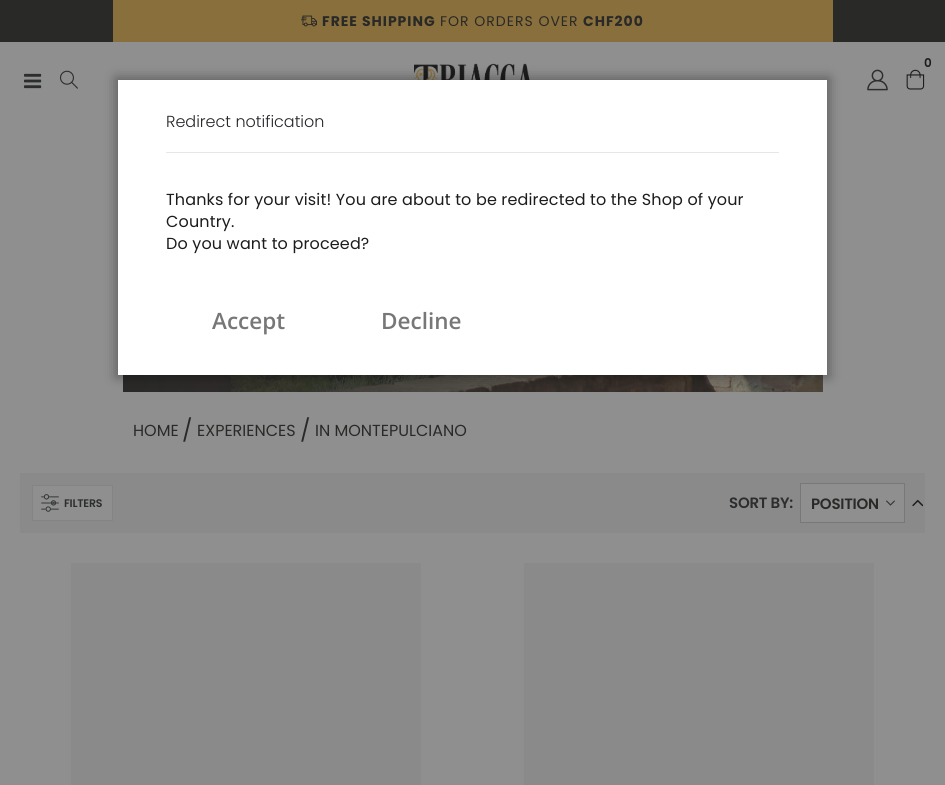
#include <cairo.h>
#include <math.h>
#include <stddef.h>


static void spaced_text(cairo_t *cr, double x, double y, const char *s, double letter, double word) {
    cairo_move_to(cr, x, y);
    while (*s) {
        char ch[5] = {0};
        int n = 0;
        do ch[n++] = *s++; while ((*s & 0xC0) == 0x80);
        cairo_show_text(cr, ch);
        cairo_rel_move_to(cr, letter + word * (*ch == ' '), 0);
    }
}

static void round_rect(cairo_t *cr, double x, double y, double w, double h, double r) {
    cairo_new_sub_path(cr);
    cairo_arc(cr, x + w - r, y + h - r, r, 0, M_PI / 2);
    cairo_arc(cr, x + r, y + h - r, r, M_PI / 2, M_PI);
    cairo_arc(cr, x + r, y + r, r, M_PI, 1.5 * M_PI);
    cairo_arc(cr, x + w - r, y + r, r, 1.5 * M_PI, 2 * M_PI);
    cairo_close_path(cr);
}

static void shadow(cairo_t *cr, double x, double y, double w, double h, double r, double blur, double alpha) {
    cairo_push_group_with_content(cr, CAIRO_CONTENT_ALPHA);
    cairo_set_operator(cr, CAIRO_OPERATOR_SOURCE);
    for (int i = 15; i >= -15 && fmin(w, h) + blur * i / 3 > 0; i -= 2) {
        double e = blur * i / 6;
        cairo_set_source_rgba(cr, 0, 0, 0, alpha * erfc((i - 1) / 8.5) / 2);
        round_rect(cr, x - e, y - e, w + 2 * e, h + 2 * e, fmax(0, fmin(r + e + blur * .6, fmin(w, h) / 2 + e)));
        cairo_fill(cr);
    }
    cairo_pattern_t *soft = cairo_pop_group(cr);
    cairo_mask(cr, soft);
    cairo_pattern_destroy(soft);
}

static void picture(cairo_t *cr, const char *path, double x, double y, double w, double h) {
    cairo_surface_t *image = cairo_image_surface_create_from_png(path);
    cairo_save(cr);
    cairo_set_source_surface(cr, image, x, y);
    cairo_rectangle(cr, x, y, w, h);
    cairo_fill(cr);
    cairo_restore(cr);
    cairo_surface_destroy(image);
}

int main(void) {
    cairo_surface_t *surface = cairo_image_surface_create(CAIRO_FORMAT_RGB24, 945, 785);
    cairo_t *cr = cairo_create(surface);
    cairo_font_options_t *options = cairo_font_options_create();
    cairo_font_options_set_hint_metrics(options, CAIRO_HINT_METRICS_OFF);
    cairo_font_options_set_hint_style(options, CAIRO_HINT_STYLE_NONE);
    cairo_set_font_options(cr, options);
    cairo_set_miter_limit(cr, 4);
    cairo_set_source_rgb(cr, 0.561, 0.561, 0.561);
    cairo_paint(cr);
    cairo_set_source_rgb(cr, 0.161, 0.161, 0.157);
    cairo_rectangle(cr, 0, 0, 945, 42);
    cairo_fill(cr);
    cairo_set_source_rgb(cr, 0.537, 0.435, 0.231);
    cairo_rectangle(cr, 113, 0, 720, 42);
    cairo_fill(cr);
    picture(cr, "img1.png", 301, 15, 16, 12);
    cairo_select_font_face(cr, "Poppins", CAIRO_FONT_SLANT_NORMAL, CAIRO_FONT_WEIGHT_BOLD);
    cairo_set_font_size(cr, 14);
    cairo_set_source_rgb(cr, 0.161, 0.161, 0.157);
    spaced_text(cr, 322, 26, "FREE SHIPPING", 1, 0);
    cairo_select_font_face(cr, "Poppins", CAIRO_FONT_SLANT_NORMAL, CAIRO_FONT_WEIGHT_NORMAL);
    spaced_text(cr, 440, 26, "FOR ORDERS OVER", 1, 0);
    cairo_select_font_face(cr, "Poppins", CAIRO_FONT_SLANT_NORMAL, CAIRO_FONT_WEIGHT_BOLD);
    spaced_text(cr, 583, 26, "CHF200", 1, 0);
    picture(cr, "img2.png", 24, 73, 18, 16);
    picture(cr, "img3.png", 59, 70, 19, 19);
    picture(cr, "img4.png", 414, 63, 116, 17);
    cairo_select_font_face(cr, "Poppins SemiBold", CAIRO_FONT_SLANT_NORMAL, CAIRO_FONT_WEIGHT_NORMAL);
    cairo_set_font_size(cr, 12);
    cairo_set_source_rgb(cr, 0.11, 0.11, 0.11);
    cairo_move_to(cr, 924, 67);
    cairo_show_text(cr, "0");
    picture(cr, "img5.png", 906, 69, 19, 21);
    picture(cr, "img6.png", 867, 69, 21, 22);
    picture(cr, "img7.png", 123, 375, 700, 17);
    cairo_select_font_face(cr, "Poppins", CAIRO_FONT_SLANT_NORMAL, CAIRO_FONT_WEIGHT_NORMAL);
    cairo_set_font_size(cr, 16);
    cairo_set_source_rgb(cr, 0.161, 0.161, 0.157);
    cairo_move_to(cr, 133, 436);
    cairo_show_text(cr, "HOME");
    cairo_set_font_size(cr, 22);
    cairo_move_to(cr, 182, 438);
    cairo_show_text(cr, "/");
    cairo_set_font_size(cr, 16);
    cairo_move_to(cr, 197, 436);
    cairo_show_text(cr, "EXPERIENCES");
    cairo_set_font_size(cr, 22);
    cairo_move_to(cr, 300, 438);
    cairo_show_text(cr, "/");
    cairo_set_font_size(cr, 16);
    cairo_move_to(cr, 315, 436);
    cairo_show_text(cr, "IN MONTEPULCIANO");
    cairo_set_source_rgb(cr, 0.541, 0.541, 0.541);
    cairo_rectangle(cr, 20, 473, 905, 60);
    cairo_fill(cr);
    cairo_set_source_rgb(cr, 0.561, 0.561, 0.561);
    cairo_rectangle(cr, 32.5, 485.5, 80, 35);
    cairo_fill_preserve(cr);
    cairo_set_source_rgb(cr, 0.518, 0.518, 0.518);
    cairo_set_line_width(cr, 1);
    cairo_stroke(cr);
    picture(cr, "img8.png", 41, 494, 18, 18);
    cairo_select_font_face(cr, "Poppins SemiBold", CAIRO_FONT_SLANT_NORMAL, CAIRO_FONT_WEIGHT_NORMAL);
    cairo_set_font_size(cr, 11);
    cairo_set_source_rgb(cr, 0.169, 0.176, 0.184);
    spaced_text(cr, 64, 507, "FILTERS", -0.25, 0);
    cairo_set_font_size(cr, 15);
    spaced_text(cr, 729, 508, "SORT BY:", -0.25, 0);
    cairo_set_source_rgb(cr, 0.561, 0.561, 0.561);
    cairo_rectangle(cr, 801, 484, 103, 38);
    cairo_fill(cr);
    picture(cr, "img9.png", 886, 500, 9, 6);
    cairo_rectangle(cr, 800.5, 483.5, 104, 39);
    cairo_set_source_rgb(cr, 0.471, 0.471, 0.471);
    cairo_stroke(cr);
    cairo_set_source_rgb(cr, 0.161, 0.161, 0.157);
    spaced_text(cr, 811, 509, "POSITION", -0.25, 0);
    picture(cr, "img10.png", 912, 499, 11, 8);
    cairo_set_source_rgb(cr, 0.541, 0.541, 0.541);
    cairo_rectangle(cr, 71, 563, 350, 222);
    cairo_fill(cr);
    cairo_rectangle(cr, 524, 563, 350, 222);
    cairo_fill(cr);
    cairo_set_source_rgb(cr, 0, 0, 0);
    shadow(cr, 116, 78, 713, 299, 0, 6, 0.35);
    cairo_set_source_rgb(cr, 1, 1, 1);
    cairo_rectangle(cr, 118, 80, 709, 295);
    cairo_fill(cr);
    cairo_set_source_rgb(cr, 0.906, 0.906, 0.906);
    cairo_rectangle(cr, 166, 152, 613, 1);
    cairo_fill(cr);
    cairo_select_font_face(cr, "Poppins Light", CAIRO_FONT_SLANT_NORMAL, CAIRO_FONT_WEIGHT_NORMAL);
    cairo_set_font_size(cr, 16);
    cairo_set_source_rgb(cr, 0.133, 0.145, 0.161);
    cairo_move_to(cr, 166, 127);
    cairo_show_text(cr, "Redirect notification");
    cairo_select_font_face(cr, "Poppins", CAIRO_FONT_SLANT_NORMAL, CAIRO_FONT_WEIGHT_NORMAL);
    cairo_set_source_rgb(cr, 0.11, 0.11, 0.11);
    spaced_text(cr, 166, 205, "Thanks for your visit! You are about to be redirected to the Shop of your", 0.15, 0);
    spaced_text(cr, 166, 227, "Country.", 0.15, 0);
    spaced_text(cr, 166, 249, "Do you want to proceed?", 0.15, 0);
    cairo_select_font_face(cr, "Open Sans SemiBold", CAIRO_FONT_SLANT_NORMAL, CAIRO_FONT_WEIGHT_NORMAL);
    cairo_set_font_size(cr, 22.5);
    cairo_set_source_rgb(cr, 0.467, 0.467, 0.467);
    cairo_move_to(cr, 212, 329);
    cairo_show_text(cr, "Accept");
    cairo_move_to(cr, 381, 329);
    cairo_show_text(cr, "Decline");
    cairo_surface_write_to_png(surface, "page.png");
    cairo_font_options_destroy(options);
    cairo_destroy(cr);
    cairo_surface_destroy(surface);
    return 0;
}
